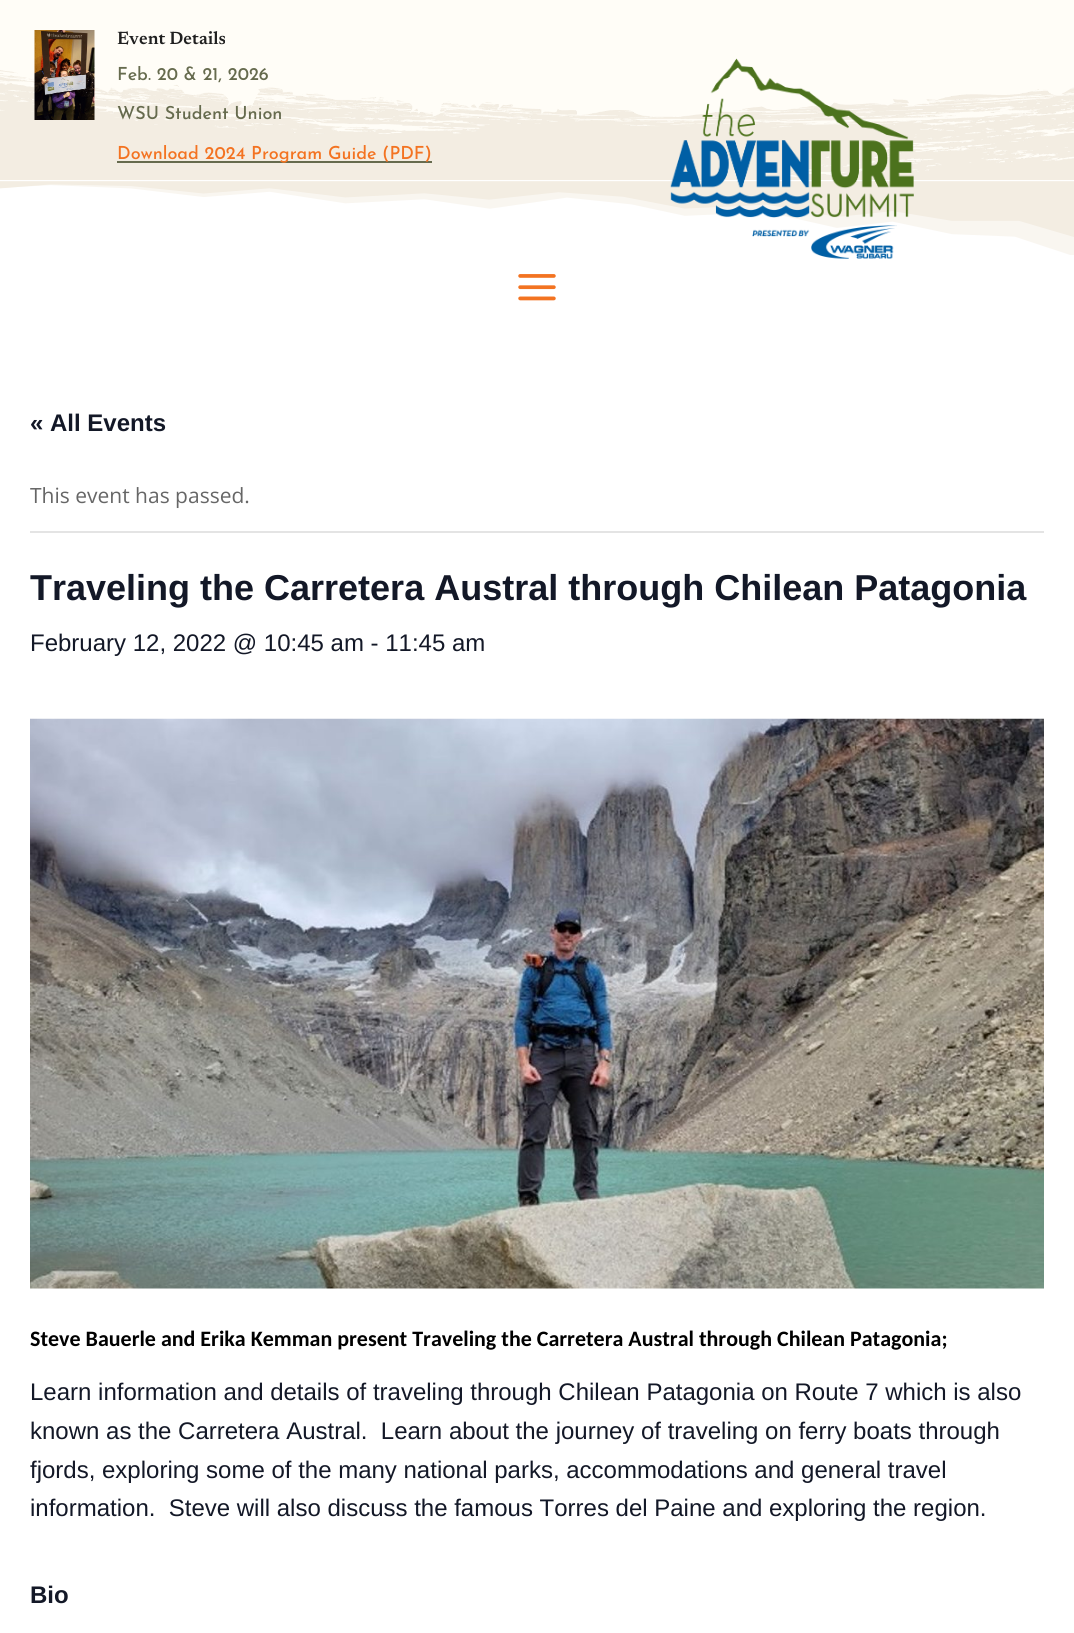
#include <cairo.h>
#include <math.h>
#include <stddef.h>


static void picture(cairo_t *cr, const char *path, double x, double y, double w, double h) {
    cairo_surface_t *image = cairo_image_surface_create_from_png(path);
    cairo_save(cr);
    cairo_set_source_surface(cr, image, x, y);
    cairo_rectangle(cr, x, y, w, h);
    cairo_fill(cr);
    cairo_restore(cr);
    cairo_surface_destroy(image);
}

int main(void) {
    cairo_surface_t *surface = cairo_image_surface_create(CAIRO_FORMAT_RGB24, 1074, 1633);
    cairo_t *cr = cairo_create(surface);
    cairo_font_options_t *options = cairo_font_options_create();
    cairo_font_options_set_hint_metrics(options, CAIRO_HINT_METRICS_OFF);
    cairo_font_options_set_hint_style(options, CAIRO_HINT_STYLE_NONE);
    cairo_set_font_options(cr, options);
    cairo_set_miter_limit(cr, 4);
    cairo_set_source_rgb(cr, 1, 1, 1);
    cairo_paint(cr);
    cairo_set_source_rgb(cr, 0.953, 0.929, 0.886);
    cairo_rectangle(cr, 0, 70, 1074, 110);
    cairo_fill(cr);
    picture(cr, "img1.png", 0, 0, 1074, 177);
    picture(cr, "img2.png", 34, 30, 61, 90);
    cairo_select_font_face(cr, "Newsreader SemiBold", CAIRO_FONT_SLANT_NORMAL, CAIRO_FONT_WEIGHT_NORMAL);
    cairo_set_font_size(cr, 18);
    cairo_set_source_rgb(cr, 0.125, 0.125, 0.125);
    cairo_move_to(cr, 117, 44);
    cairo_show_text(cr, "Event Details");
    cairo_select_font_face(cr, "Josefin Sans Thin", CAIRO_FONT_SLANT_NORMAL, CAIRO_FONT_WEIGHT_NORMAL);
    cairo_set_source_rgb(cr, 0.4, 0.42, 0.306);
    cairo_move_to(cr, 117, 80);
    cairo_show_text(cr, "Feb. 20 & 21, 2026");
    cairo_move_to(cr, 117, 119);
    cairo_show_text(cr, "WSU Student Union");
    cairo_rectangle(cr, 117, 161, 315, 2);
    cairo_fill(cr);
    cairo_set_source_rgb(cr, 0.953, 0.451, 0.129);
    cairo_move_to(cr, 117, 159);
    cairo_show_text(cr, "Download 2024 Program Guide (PDF)");
    picture(cr, "img4.png", 0, 181, 1074, 74);
    picture(cr, "img3.png", 670, 58, 244, 201);
    picture(cr, "img5.png", 518, 274, 38, 27);
    cairo_select_font_face(cr, "Liberation Sans", CAIRO_FONT_SLANT_NORMAL, CAIRO_FONT_WEIGHT_BOLD);
    cairo_set_font_size(cr, 24);
    cairo_set_source_rgb(cr, 0.078, 0.094, 0.153);
    cairo_move_to(cr, 30, 431);
    cairo_show_text(cr, "« All Events");
    cairo_set_source_rgb(cr, 0.894, 0.894, 0.894);
    cairo_rectangle(cr, 30, 531, 1014, 2);
    cairo_fill(cr);
    cairo_select_font_face(cr, "Open Sans", CAIRO_FONT_SLANT_NORMAL, CAIRO_FONT_WEIGHT_NORMAL);
    cairo_set_font_size(cr, 21);
    cairo_set_source_rgb(cr, 0.4, 0.4, 0.4);
    cairo_move_to(cr, 30, 503);
    cairo_show_text(cr, "This event has passed.");
    cairo_select_font_face(cr, "Liberation Sans", CAIRO_FONT_SLANT_NORMAL, CAIRO_FONT_WEIGHT_BOLD);
    cairo_set_font_size(cr, 36);
    cairo_set_source_rgb(cr, 0.078, 0.094, 0.153);
    cairo_move_to(cr, 30, 600);
    cairo_show_text(cr, "Traveling the Carretera Austral through Chilean Patagonia");
    cairo_select_font_face(cr, "Liberation Sans", CAIRO_FONT_SLANT_NORMAL, CAIRO_FONT_WEIGHT_NORMAL);
    cairo_set_font_size(cr, 24);
    cairo_move_to(cr, 30, 651);
    cairo_show_text(cr, "February 12, 2022 @ 10:45 am - 11:45 am");
    picture(cr, "img6.png", 30, 718, 1014, 571);
    cairo_select_font_face(cr, "Carlito", CAIRO_FONT_SLANT_NORMAL, CAIRO_FONT_WEIGHT_BOLD);
    cairo_set_font_size(cr, 22);
    cairo_set_source_rgb(cr, 0, 0, 0);
    cairo_move_to(cr, 30, 1346);
    cairo_show_text(cr, "Steve Bauerle and Erika Kemman present Traveling the Carretera Austral through Chilean Patagonia;");
    cairo_select_font_face(cr, "Liberation Sans", CAIRO_FONT_SLANT_NORMAL, CAIRO_FONT_WEIGHT_NORMAL);
    cairo_set_font_size(cr, 24);
    cairo_set_source_rgb(cr, 0.078, 0.094, 0.153);
    cairo_move_to(cr, 30, 1400);
    cairo_show_text(cr, "Learn information and details of traveling through Chilean Patagonia on Route 7 which is also");
    cairo_move_to(cr, 30, 1439);
    cairo_show_text(cr, "known as the Carretera Austral.  Learn about the journey of traveling on ferry boats through");
    cairo_move_to(cr, 30, 1478);
    cairo_show_text(cr, "fjords, exploring some of the many national parks, accommodations and general travel");
    cairo_move_to(cr, 30, 1516);
    cairo_show_text(cr, "information.  Steve will also discuss the famous Torres del Paine and exploring the region.");
    cairo_select_font_face(cr, "Liberation Sans", CAIRO_FONT_SLANT_NORMAL, CAIRO_FONT_WEIGHT_BOLD);
    cairo_move_to(cr, 30, 1603);
    cairo_show_text(cr, "Bio");
    cairo_surface_write_to_png(surface, "page.png");
    cairo_font_options_destroy(options);
    cairo_destroy(cr);
    cairo_surface_destroy(surface);
    return 0;
}
